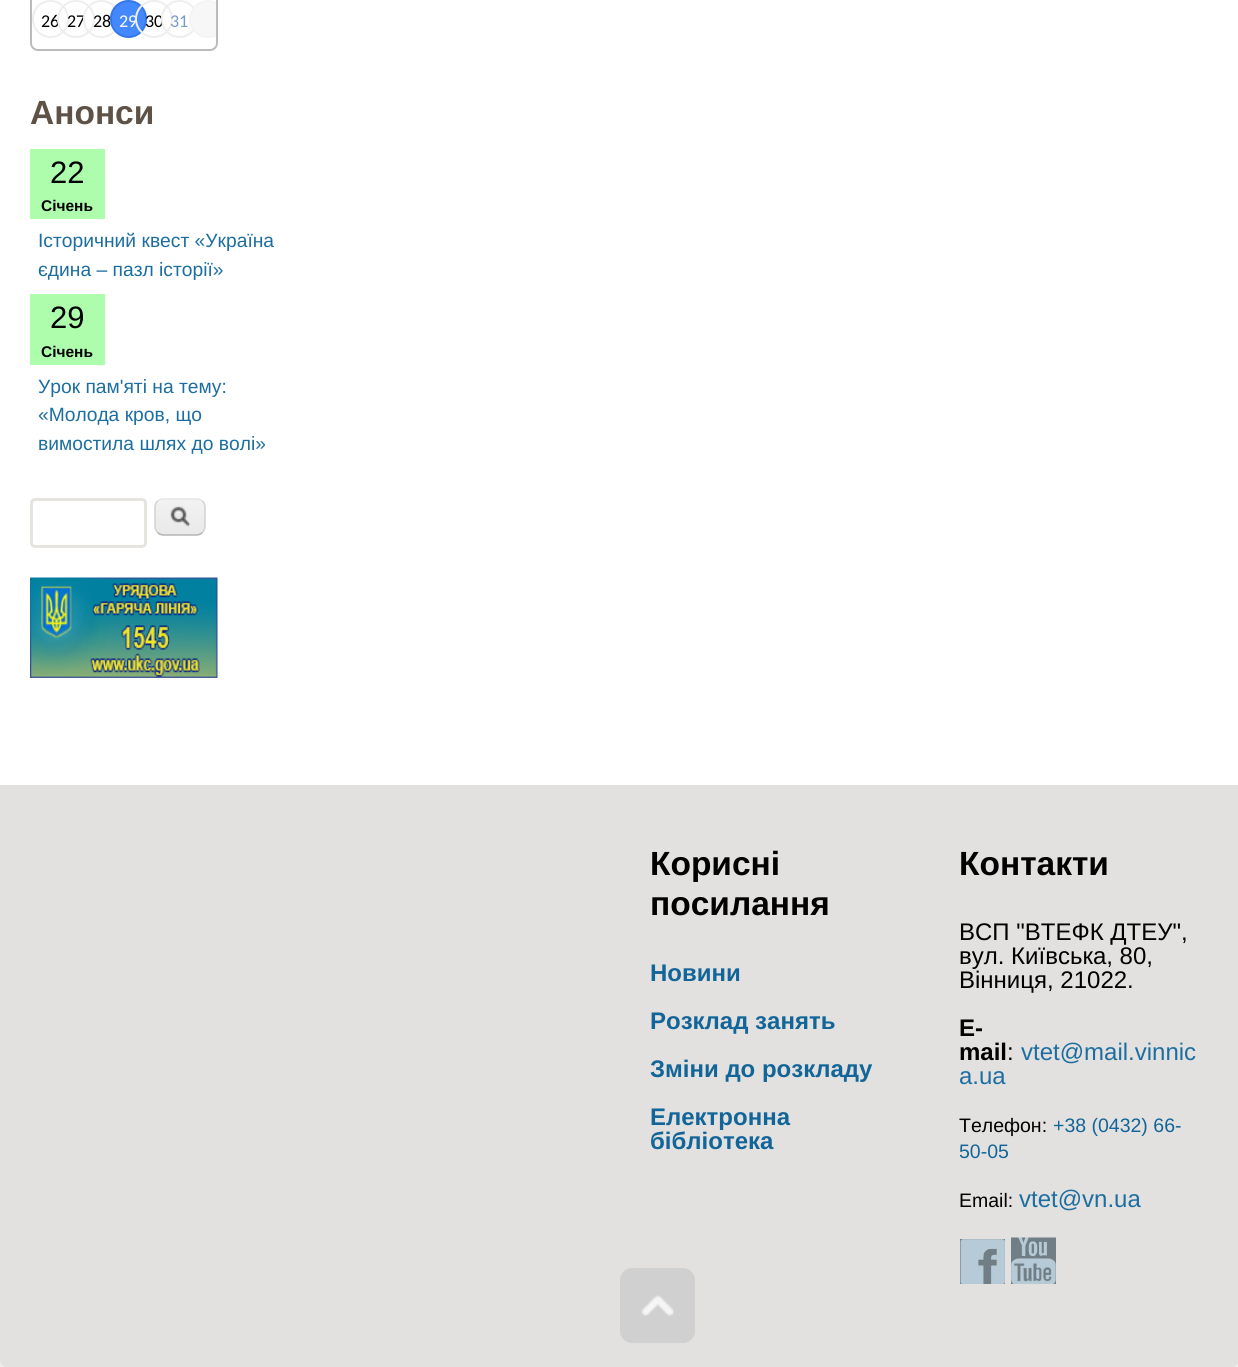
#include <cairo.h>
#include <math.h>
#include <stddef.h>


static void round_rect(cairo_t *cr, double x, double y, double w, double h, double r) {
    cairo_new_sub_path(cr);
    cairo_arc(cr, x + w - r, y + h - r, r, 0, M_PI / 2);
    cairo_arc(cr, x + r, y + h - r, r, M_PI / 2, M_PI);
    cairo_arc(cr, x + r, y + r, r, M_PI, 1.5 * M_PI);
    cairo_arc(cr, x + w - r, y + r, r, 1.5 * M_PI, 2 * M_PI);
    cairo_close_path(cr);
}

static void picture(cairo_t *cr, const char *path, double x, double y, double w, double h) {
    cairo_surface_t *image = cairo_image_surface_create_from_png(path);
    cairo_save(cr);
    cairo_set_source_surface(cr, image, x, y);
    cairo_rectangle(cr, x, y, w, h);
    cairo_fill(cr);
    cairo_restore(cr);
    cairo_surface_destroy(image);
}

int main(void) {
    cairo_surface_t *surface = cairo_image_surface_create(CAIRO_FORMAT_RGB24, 1238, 1367);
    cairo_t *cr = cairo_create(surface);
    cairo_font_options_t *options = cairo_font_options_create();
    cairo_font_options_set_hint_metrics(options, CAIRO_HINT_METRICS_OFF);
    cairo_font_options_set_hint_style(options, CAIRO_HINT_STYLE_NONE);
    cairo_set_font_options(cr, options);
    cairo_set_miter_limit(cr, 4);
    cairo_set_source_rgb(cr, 0.937, 0.929, 0.918);
    cairo_paint(cr);
    cairo_set_source_rgb(cr, 1, 1, 1);
    cairo_rectangle(cr, 0, 0, 1238, 785);
    cairo_fill(cr);
    round_rect(cr, 31, -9, 186, 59, 7);
    cairo_set_source_rgb(cr, 0.733, 0.733, 0.733);
    cairo_stroke(cr);
    round_rect(cr, 33, 1, 35, 36, 17.5);
    cairo_set_source_rgb(cr, 0.933, 0.933, 0.933);
    cairo_stroke(cr);
    cairo_select_font_face(cr, "Carlito", CAIRO_FONT_SLANT_NORMAL, CAIRO_FONT_WEIGHT_NORMAL);
    cairo_set_font_size(cr, 18);
    cairo_set_source_rgb(cr, 0, 0, 0);
    cairo_move_to(cr, 41, 27);
    cairo_show_text(cr, "26");
    cairo_new_path(cr);
    cairo_arc(cr, 76, 19, 18, 0, 2 * M_PI);
    cairo_set_source_rgb(cr, 0.933, 0.933, 0.933);
    cairo_stroke(cr);
    cairo_set_source_rgb(cr, 0, 0, 0);
    cairo_move_to(cr, 67, 27);
    cairo_show_text(cr, "27");
    round_rect(cr, 84, 1, 35, 36, 17.5);
    cairo_set_source_rgb(cr, 0.933, 0.933, 0.933);
    cairo_stroke(cr);
    cairo_set_source_rgb(cr, 0, 0, 0);
    cairo_move_to(cr, 93, 27);
    cairo_show_text(cr, "28");
    cairo_set_source_rgb(cr, 0.267, 0.533, 1);
    round_rect(cr, 111, 1, 35, 36, 17.5);
    cairo_fill_preserve(cr);
    cairo_set_source_rgb(cr, 0.2, 0.467, 0.933);
    cairo_stroke(cr);
    cairo_set_source_rgb(cr, 1, 1, 1);
    cairo_move_to(cr, 119, 27);
    cairo_show_text(cr, "29");
    cairo_new_path(cr);
    cairo_arc(cr, 154, 19, 18, 0, 2 * M_PI);
    cairo_set_source_rgb(cr, 0.933, 0.933, 0.933);
    cairo_stroke(cr);
    cairo_set_source_rgb(cr, 0, 0, 0);
    cairo_move_to(cr, 145, 27);
    cairo_show_text(cr, "30");
    round_rect(cr, 162, 1, 35, 36, 17.5);
    cairo_set_source_rgb(cr, 0.933, 0.933, 0.933);
    cairo_stroke(cr);
    cairo_set_source_rgb(cr, 0.467, 0.6, 0.8);
    cairo_move_to(cr, 170, 27);
    cairo_show_text(cr, "31");
    cairo_save(cr);
    cairo_rectangle(cr, 32, 0, 184, 42);
    cairo_clip(cr);
    cairo_set_source_rgb(cr, 0.965, 0.965, 0.965);
    cairo_arc(cr, 208, 19, 18, 0, 2 * M_PI);
    cairo_fill_preserve(cr);
    cairo_set_source_rgb(cr, 0.957, 0.957, 0.957);
    cairo_stroke(cr);
    cairo_restore(cr);
    cairo_select_font_face(cr, "Liberation Sans", CAIRO_FONT_SLANT_NORMAL, CAIRO_FONT_WEIGHT_BOLD);
    cairo_set_font_size(cr, 33.5);
    cairo_set_source_rgb(cr, 0.369, 0.322, 0.278);
    cairo_move_to(cr, 30, 124);
    cairo_show_text(cr, "Анонси");
    cairo_set_source_rgb(cr, 0.682, 0.992, 0.675);
    cairo_rectangle(cr, 30, 149, 75, 70);
    cairo_fill(cr);
    cairo_select_font_face(cr, "Liberation Sans", CAIRO_FONT_SLANT_NORMAL, CAIRO_FONT_WEIGHT_NORMAL);
    cairo_set_font_size(cr, 31);
    cairo_set_source_rgb(cr, 0, 0, 0);
    cairo_move_to(cr, 50, 183);
    cairo_show_text(cr, "22");
    cairo_select_font_face(cr, "Liberation Sans", CAIRO_FONT_SLANT_NORMAL, CAIRO_FONT_WEIGHT_BOLD);
    cairo_set_font_size(cr, 15.5);
    cairo_move_to(cr, 41, 211);
    cairo_show_text(cr, "Січень");
    cairo_select_font_face(cr, "Liberation Sans", CAIRO_FONT_SLANT_NORMAL, CAIRO_FONT_WEIGHT_NORMAL);
    cairo_set_font_size(cr, 19.25);
    cairo_set_source_rgb(cr, 0.11, 0.431, 0.627);
    cairo_move_to(cr, 38, 247);
    cairo_show_text(cr, "Історичний квест «Україна");
    cairo_move_to(cr, 38, 276);
    cairo_show_text(cr, "єдина – пазл історії»");
    cairo_set_source_rgb(cr, 0.682, 0.992, 0.675);
    cairo_rectangle(cr, 30, 294, 75, 71);
    cairo_fill(cr);
    cairo_set_font_size(cr, 31);
    cairo_set_source_rgb(cr, 0, 0, 0);
    cairo_move_to(cr, 50, 328);
    cairo_show_text(cr, "29");
    cairo_select_font_face(cr, "Liberation Sans", CAIRO_FONT_SLANT_NORMAL, CAIRO_FONT_WEIGHT_BOLD);
    cairo_set_font_size(cr, 15.5);
    cairo_move_to(cr, 41, 357);
    cairo_show_text(cr, "Січень");
    cairo_select_font_face(cr, "Liberation Sans", CAIRO_FONT_SLANT_NORMAL, CAIRO_FONT_WEIGHT_NORMAL);
    cairo_set_font_size(cr, 19.25);
    cairo_set_source_rgb(cr, 0.11, 0.431, 0.627);
    cairo_move_to(cr, 38, 393);
    cairo_show_text(cr, "Урок пам'яті на тему:");
    cairo_move_to(cr, 38, 421);
    cairo_show_text(cr, "«Молода кров, що");
    cairo_move_to(cr, 38, 450);
    cairo_show_text(cr, "вимостила шлях до волі»");
    round_rect(cr, 31.5, 499.5, 114, 47, 3.5);
    cairo_set_source_rgb(cr, 0.902, 0.894, 0.871);
    cairo_set_line_width(cr, 3);
    cairo_stroke(cr);
    picture(cr, "img1.png", 154, 499, 52, 37);
    cairo_new_path(cr);
    cairo_move_to(cr, 157.5, 501);
    cairo_curve_to(cr, 159, 499.5, 161.5, 499, 163.5, 499);
    cairo_line_to(cr, 196.5, 499);
    cairo_curve_to(cr, 198.5, 499, 201, 499.5, 202.5, 501);
    cairo_set_source_rgb(cr, 0.894, 0.894, 0.894);
    cairo_set_line_width(cr, 1.5);
    cairo_stroke(cr);
    cairo_new_path(cr);
    cairo_move_to(cr, 202.5, 501);
    cairo_curve_to(cr, 204, 502.5, 205, 505, 205, 507);
    cairo_line_to(cr, 205, 526.5);
    cairo_curve_to(cr, 205, 528.5, 204, 531, 202.5, 532.5);
    cairo_set_source_rgb(cr, 0.824, 0.824, 0.824);
    cairo_stroke(cr);
    cairo_new_path(cr);
    cairo_move_to(cr, 202.5, 532.5);
    cairo_curve_to(cr, 201, 534, 198.5, 535, 196.5, 535);
    cairo_line_to(cr, 163.5, 535);
    cairo_curve_to(cr, 161.5, 535, 159, 534, 157.5, 532.5);
    cairo_set_source_rgb(cr, 0.706, 0.706, 0.706);
    cairo_stroke(cr);
    cairo_new_path(cr);
    cairo_move_to(cr, 157.5, 532.5);
    cairo_curve_to(cr, 156, 531, 155, 528.5, 155, 526.5);
    cairo_line_to(cr, 155, 507);
    cairo_curve_to(cr, 155, 505, 156, 502.5, 157.5, 501);
    cairo_set_source_rgb(cr, 0.824, 0.824, 0.824);
    cairo_stroke(cr);
    picture(cr, "img2.png", 30, 577, 188, 101);
    cairo_set_source_rgb(cr, 0.89, 0.882, 0.875);
    cairo_new_path(cr);
    cairo_move_to(cr, 0, 785);
    cairo_line_to(cr, 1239, 785);
    cairo_line_to(cr, 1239, 1359);
    cairo_curve_to(cr, 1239, 1364, 1235, 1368, 1230, 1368);
    cairo_line_to(cr, 9, 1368);
    cairo_curve_to(cr, 4, 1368, 0, 1364, 0, 1359);
    cairo_close_path(cr);
    cairo_fill(cr);
    cairo_select_font_face(cr, "Liberation Sans", CAIRO_FONT_SLANT_NORMAL, CAIRO_FONT_WEIGHT_BOLD);
    cairo_set_font_size(cr, 33.5);
    cairo_set_source_rgb(cr, 0, 0, 0);
    cairo_move_to(cr, 650, 875);
    cairo_show_text(cr, "Корисні");
    cairo_move_to(cr, 650, 915);
    cairo_show_text(cr, "посилання");
    cairo_set_font_size(cr, 24);
    cairo_set_source_rgb(cr, 0.071, 0.396, 0.596);
    cairo_move_to(cr, 650, 981);
    cairo_show_text(cr, "Новини");
    cairo_move_to(cr, 650, 1029);
    cairo_show_text(cr, "Розклад занять");
    cairo_move_to(cr, 650, 1077);
    cairo_show_text(cr, "Зміни до розкладу");
    cairo_move_to(cr, 650, 1125);
    cairo_show_text(cr, "Електронна");
    cairo_move_to(cr, 650, 1149);
    cairo_show_text(cr, "бібліотека");
    cairo_set_font_size(cr, 33.5);
    cairo_set_source_rgb(cr, 0, 0, 0);
    cairo_move_to(cr, 959, 875);
    cairo_show_text(cr, "Контакти");
    cairo_select_font_face(cr, "Liberation Sans", CAIRO_FONT_SLANT_NORMAL, CAIRO_FONT_WEIGHT_NORMAL);
    cairo_set_font_size(cr, 24);
    cairo_move_to(cr, 959, 940);
    cairo_show_text(cr, "ВСП \"ВТЕФК ДТЕУ\",");
    cairo_move_to(cr, 959, 964);
    cairo_show_text(cr, "вул. Київська, 80,");
    cairo_move_to(cr, 959, 988);
    cairo_show_text(cr, "Вінниця, 21022.");
    cairo_select_font_face(cr, "Liberation Sans", CAIRO_FONT_SLANT_NORMAL, CAIRO_FONT_WEIGHT_BOLD);
    cairo_move_to(cr, 959, 1036);
    cairo_show_text(cr, "E-");
    cairo_move_to(cr, 959, 1060);
    cairo_show_text(cr, "mail");
    cairo_select_font_face(cr, "Liberation Sans", CAIRO_FONT_SLANT_NORMAL, CAIRO_FONT_WEIGHT_NORMAL);
    cairo_move_to(cr, 1007, 1060);
    cairo_show_text(cr, ":");
    cairo_set_source_rgb(cr, 0.11, 0.431, 0.627);
    cairo_move_to(cr, 1021, 1060);
    cairo_show_text(cr, "vtet@mail.vinnic");
    cairo_move_to(cr, 959, 1084);
    cairo_show_text(cr, "a.ua");
    cairo_set_font_size(cr, 19.5);
    cairo_set_source_rgb(cr, 0, 0, 0);
    cairo_move_to(cr, 959, 1132);
    cairo_show_text(cr, "Телефон:");
    cairo_set_source_rgb(cr, 0.071, 0.396, 0.596);
    cairo_move_to(cr, 1053, 1132);
    cairo_show_text(cr, "+38 (0432) 66-");
    cairo_move_to(cr, 959, 1158);
    cairo_show_text(cr, "50-05");
    cairo_set_source_rgb(cr, 0, 0, 0);
    cairo_move_to(cr, 959, 1207);
    cairo_show_text(cr, "Email:");
    cairo_set_font_size(cr, 24);
    cairo_set_source_rgb(cr, 0.11, 0.431, 0.627);
    cairo_move_to(cr, 1019, 1207);
    cairo_show_text(cr, "vtet@vn.ua");
    picture(cr, "img3.png", 960, 1239, 45, 45);
    picture(cr, "img4.png", 1011, 1237, 45, 47);
    cairo_set_source_rgb(cr, 0.82, 0.816, 0.816);
    round_rect(cr, 620, 1268, 75, 75, 12);
    cairo_fill(cr);
    picture(cr, "img5.png", 641, 1295, 33, 21);
    cairo_surface_write_to_png(surface, "page.png");
    cairo_font_options_destroy(options);
    cairo_destroy(cr);
    cairo_surface_destroy(surface);
    return 0;
}
